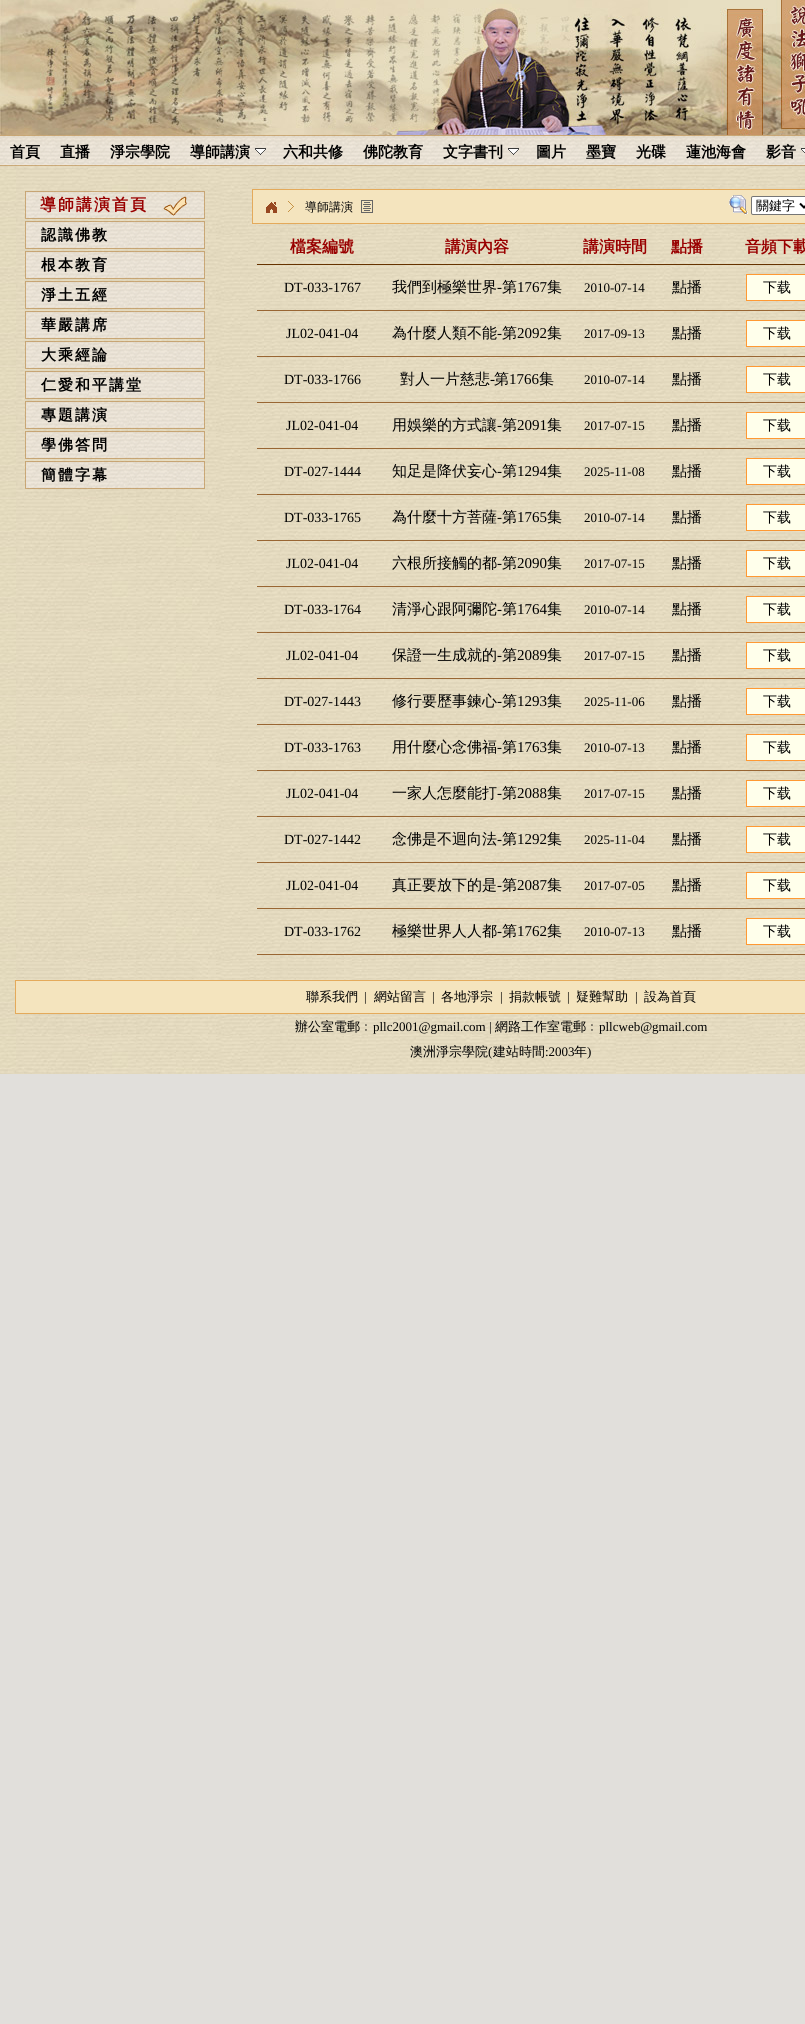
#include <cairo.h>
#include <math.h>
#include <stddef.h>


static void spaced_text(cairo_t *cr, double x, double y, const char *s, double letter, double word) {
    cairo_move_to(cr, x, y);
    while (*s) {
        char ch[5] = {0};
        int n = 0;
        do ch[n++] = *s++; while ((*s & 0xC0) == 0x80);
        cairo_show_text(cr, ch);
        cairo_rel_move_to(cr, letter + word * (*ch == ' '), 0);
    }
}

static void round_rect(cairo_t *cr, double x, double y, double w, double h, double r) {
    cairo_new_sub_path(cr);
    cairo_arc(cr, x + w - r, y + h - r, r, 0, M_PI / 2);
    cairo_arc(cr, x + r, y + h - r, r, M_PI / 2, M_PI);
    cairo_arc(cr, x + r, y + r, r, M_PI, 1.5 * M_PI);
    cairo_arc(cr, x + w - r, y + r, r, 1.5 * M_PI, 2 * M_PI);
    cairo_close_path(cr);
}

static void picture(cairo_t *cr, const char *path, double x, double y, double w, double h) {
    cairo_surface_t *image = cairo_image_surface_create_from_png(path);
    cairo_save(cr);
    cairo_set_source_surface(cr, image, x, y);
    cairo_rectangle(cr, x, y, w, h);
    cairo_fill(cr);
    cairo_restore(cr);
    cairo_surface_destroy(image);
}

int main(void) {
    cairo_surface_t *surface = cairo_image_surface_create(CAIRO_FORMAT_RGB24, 805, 2024);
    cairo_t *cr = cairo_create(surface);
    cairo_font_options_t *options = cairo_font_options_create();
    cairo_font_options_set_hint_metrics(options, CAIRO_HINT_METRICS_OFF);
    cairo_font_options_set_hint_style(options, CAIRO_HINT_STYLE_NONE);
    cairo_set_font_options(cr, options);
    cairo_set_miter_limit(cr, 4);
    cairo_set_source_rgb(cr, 0.882, 0.875, 0.859);
    cairo_paint(cr);
    picture(cr, "img1.png", 0, 166, 805, 3);
    picture(cr, "img2.png", 0, 0, 805, 135);
    picture(cr, "img3.png", 0, 135, 805, 31);
    cairo_select_font_face(cr, "WenQuanYi Zen Hei", CAIRO_FONT_SLANT_NORMAL, CAIRO_FONT_WEIGHT_BOLD);
    cairo_set_font_size(cr, 15);
    cairo_set_source_rgb(cr, 0, 0, 0);
    cairo_move_to(cr, 10, 157);
    cairo_show_text(cr, "首頁");
    cairo_move_to(cr, 60, 157);
    cairo_show_text(cr, "直播");
    cairo_move_to(cr, 110, 157);
    cairo_show_text(cr, "淨宗學院");
    cairo_move_to(cr, 190, 157);
    cairo_show_text(cr, "導師講演");
    picture(cr, "img4.png", 255, 148, 11, 7);
    cairo_move_to(cr, 283, 157);
    cairo_show_text(cr, "六和共修");
    cairo_move_to(cr, 363, 157);
    cairo_show_text(cr, "佛陀教育");
    cairo_move_to(cr, 443, 157);
    cairo_show_text(cr, "文字書刊");
    picture(cr, "img5.png", 508, 148, 11, 7);
    cairo_move_to(cr, 536, 157);
    cairo_show_text(cr, "圖片");
    cairo_move_to(cr, 586, 157);
    cairo_show_text(cr, "墨寶");
    cairo_move_to(cr, 636, 157);
    cairo_show_text(cr, "光碟");
    cairo_move_to(cr, 686, 157);
    cairo_show_text(cr, "蓮池海會");
    cairo_move_to(cr, 766, 157);
    cairo_show_text(cr, "影音");
    picture(cr, "img6.png", 801, 148, 4, 5);
    picture(cr, "img7.png", 0, 169, 805, 801);
    picture(cr, "img8.png", 25, 191, 180, 28);
    picture(cr, "img9.png", 163, 196, 24, 20);
    cairo_set_font_size(cr, 16);
    cairo_set_source_rgb(cr, 0.6, 0, 0);
    spaced_text(cr, 40, 210, "導師講演首頁", 2, 0);
    picture(cr, "img8.png", 25, 221, 180, 28);
    cairo_set_font_size(cr, 15);
    cairo_set_source_rgb(cr, 0, 0, 0);
    spaced_text(cr, 41, 240, "認識佛教", 2, 0);
    picture(cr, "img8.png", 25, 251, 180, 28);
    spaced_text(cr, 41, 270, "根本教育", 2, 0);
    picture(cr, "img8.png", 25, 281, 180, 28);
    spaced_text(cr, 41, 300, "淨土五經", 2, 0);
    picture(cr, "img8.png", 25, 311, 180, 28);
    spaced_text(cr, 41, 330, "華嚴講席", 2, 0);
    picture(cr, "img8.png", 25, 341, 180, 28);
    spaced_text(cr, 41, 360, "大乘經論", 2, 0);
    picture(cr, "img8.png", 25, 371, 180, 28);
    spaced_text(cr, 41, 390, "仁愛和平講堂", 2, 0);
    picture(cr, "img8.png", 25, 401, 180, 28);
    spaced_text(cr, 41, 420, "專題講演", 2, 0);
    picture(cr, "img8.png", 25, 431, 180, 28);
    spaced_text(cr, 41, 450, "學佛答問", 2, 0);
    picture(cr, "img8.png", 25, 461, 180, 28);
    spaced_text(cr, 41, 480, "簡體字幕", 2, 0);
    cairo_set_source_rgb(cr, 0.957, 0.894, 0.745);
    cairo_rectangle(cr, 252.5, 189.5, 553, 34);
    cairo_fill_preserve(cr);
    cairo_set_source_rgb(cr, 0.894, 0.667, 0.357);
    cairo_set_line_width(cr, 1);
    cairo_stroke(cr);
    picture(cr, "img10.png", 288, 201, 6, 11);
    picture(cr, "img11.png", 266, 202, 11, 11);
    picture(cr, "img12.png", 361, 200, 12, 13);
    cairo_select_font_face(cr, "WenQuanYi Zen Hei Medium", CAIRO_FONT_SLANT_NORMAL, CAIRO_FONT_WEIGHT_NORMAL);
    cairo_set_font_size(cr, 12);
    cairo_set_source_rgb(cr, 0, 0, 0);
    cairo_move_to(cr, 305, 211);
    cairo_show_text(cr, "導師講演");
    picture(cr, "img13.png", 729, 195, 19, 20);
    cairo_set_source_rgb(cr, 1, 1, 1);
    round_rect(cr, 751.5, 196.5, 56, 18, 1.5);
    cairo_fill_preserve(cr);
    cairo_set_source_rgb(cr, 0.463, 0.463, 0.463);
    cairo_stroke(cr);
    cairo_new_path(cr);
    cairo_move_to(cr, 800, 203.5);
    cairo_line_to(cr, 804, 207.5);
    cairo_line_to(cr, 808, 203.5);
    cairo_set_source_rgb(cr, 0, 0, 0);
    cairo_set_line_width(cr, 2);
    cairo_stroke(cr);
    cairo_set_font_size(cr, 13);
    cairo_move_to(cr, 756, 210);
    cairo_show_text(cr, "關鍵字");
    cairo_set_source_rgb(cr, 0.4, 0.2, 0);
    cairo_rectangle(cr, 257, 264, 548, 1);
    cairo_fill(cr);
    cairo_select_font_face(cr, "WenQuanYi Zen Hei", CAIRO_FONT_SLANT_NORMAL, CAIRO_FONT_WEIGHT_BOLD);
    cairo_set_font_size(cr, 16);
    cairo_set_source_rgb(cr, 0.6, 0, 0);
    cairo_move_to(cr, 290, 252);
    cairo_show_text(cr, "檔案編號");
    cairo_move_to(cr, 445, 252);
    cairo_show_text(cr, "講演內容");
    cairo_move_to(cr, 583, 252);
    cairo_show_text(cr, "講演時間");
    cairo_move_to(cr, 671, 252);
    cairo_show_text(cr, "點播");
    cairo_move_to(cr, 745, 252);
    cairo_show_text(cr, "音頻下載");
    cairo_set_source_rgb(cr, 0.6, 0.4, 0.2);
    cairo_rectangle(cr, 257, 310, 548, 1);
    cairo_fill(cr);
    cairo_select_font_face(cr, "Liberation Serif", CAIRO_FONT_SLANT_NORMAL, CAIRO_FONT_WEIGHT_NORMAL);
    cairo_set_font_size(cr, 14);
    cairo_set_source_rgb(cr, 0, 0, 0);
    cairo_move_to(cr, 284, 292);
    cairo_show_text(cr, "DT-033-1767");
    cairo_select_font_face(cr, "WenQuanYi Zen Hei Medium", CAIRO_FONT_SLANT_NORMAL, CAIRO_FONT_WEIGHT_NORMAL);
    cairo_set_font_size(cr, 15);
    cairo_move_to(cr, 392, 292);
    cairo_show_text(cr, "我們到極樂世界");
    cairo_select_font_face(cr, "Liberation Serif", CAIRO_FONT_SLANT_NORMAL, CAIRO_FONT_WEIGHT_NORMAL);
    cairo_move_to(cr, 497, 292);
    cairo_show_text(cr, "-");
    cairo_select_font_face(cr, "WenQuanYi Zen Hei Medium", CAIRO_FONT_SLANT_NORMAL, CAIRO_FONT_WEIGHT_NORMAL);
    cairo_move_to(cr, 502, 292);
    cairo_show_text(cr, "第");
    cairo_select_font_face(cr, "Liberation Serif", CAIRO_FONT_SLANT_NORMAL, CAIRO_FONT_WEIGHT_NORMAL);
    cairo_move_to(cr, 517, 292);
    cairo_show_text(cr, "1767");
    cairo_select_font_face(cr, "WenQuanYi Zen Hei Medium", CAIRO_FONT_SLANT_NORMAL, CAIRO_FONT_WEIGHT_NORMAL);
    cairo_move_to(cr, 547, 292);
    cairo_show_text(cr, "集");
    cairo_select_font_face(cr, "Liberation Serif", CAIRO_FONT_SLANT_NORMAL, CAIRO_FONT_WEIGHT_NORMAL);
    cairo_set_font_size(cr, 13);
    cairo_move_to(cr, 584, 292);
    cairo_show_text(cr, "2010-07-14");
    cairo_select_font_face(cr, "WenQuanYi Zen Hei Medium", CAIRO_FONT_SLANT_NORMAL, CAIRO_FONT_WEIGHT_NORMAL);
    cairo_set_font_size(cr, 15);
    cairo_move_to(cr, 672, 292);
    cairo_show_text(cr, "點播");
    cairo_set_source_rgb(cr, 1, 1, 0.918);
    cairo_rectangle(cr, 746.5, 274.5, 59, 26);
    cairo_fill_preserve(cr);
    cairo_set_source_rgb(cr, 1, 0.6, 0.2);
    cairo_set_line_width(cr, 1);
    cairo_stroke(cr);
    cairo_set_font_size(cr, 14);
    cairo_set_source_rgb(cr, 0, 0, 0);
    cairo_move_to(cr, 763, 292);
    cairo_show_text(cr, "下载");
    cairo_set_source_rgb(cr, 0.6, 0.4, 0.2);
    cairo_rectangle(cr, 257, 356, 548, 1);
    cairo_fill(cr);
    cairo_select_font_face(cr, "Liberation Serif", CAIRO_FONT_SLANT_NORMAL, CAIRO_FONT_WEIGHT_NORMAL);
    cairo_set_source_rgb(cr, 0, 0, 0);
    cairo_move_to(cr, 286, 338);
    cairo_show_text(cr, "JL02-041-04");
    cairo_select_font_face(cr, "WenQuanYi Zen Hei Medium", CAIRO_FONT_SLANT_NORMAL, CAIRO_FONT_WEIGHT_NORMAL);
    cairo_set_font_size(cr, 15);
    cairo_move_to(cr, 392, 338);
    cairo_show_text(cr, "為什麼人類不能");
    cairo_select_font_face(cr, "Liberation Serif", CAIRO_FONT_SLANT_NORMAL, CAIRO_FONT_WEIGHT_NORMAL);
    cairo_move_to(cr, 497, 338);
    cairo_show_text(cr, "-");
    cairo_select_font_face(cr, "WenQuanYi Zen Hei Medium", CAIRO_FONT_SLANT_NORMAL, CAIRO_FONT_WEIGHT_NORMAL);
    cairo_move_to(cr, 502, 338);
    cairo_show_text(cr, "第");
    cairo_select_font_face(cr, "Liberation Serif", CAIRO_FONT_SLANT_NORMAL, CAIRO_FONT_WEIGHT_NORMAL);
    cairo_move_to(cr, 517, 338);
    cairo_show_text(cr, "2092");
    cairo_select_font_face(cr, "WenQuanYi Zen Hei Medium", CAIRO_FONT_SLANT_NORMAL, CAIRO_FONT_WEIGHT_NORMAL);
    cairo_move_to(cr, 547, 338);
    cairo_show_text(cr, "集");
    cairo_select_font_face(cr, "Liberation Serif", CAIRO_FONT_SLANT_NORMAL, CAIRO_FONT_WEIGHT_NORMAL);
    cairo_set_font_size(cr, 13);
    cairo_move_to(cr, 584, 338);
    cairo_show_text(cr, "2017-09-13");
    cairo_select_font_face(cr, "WenQuanYi Zen Hei Medium", CAIRO_FONT_SLANT_NORMAL, CAIRO_FONT_WEIGHT_NORMAL);
    cairo_set_font_size(cr, 15);
    cairo_move_to(cr, 672, 338);
    cairo_show_text(cr, "點播");
    cairo_set_source_rgb(cr, 1, 1, 0.918);
    cairo_rectangle(cr, 746.5, 320.5, 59, 26);
    cairo_fill_preserve(cr);
    cairo_set_source_rgb(cr, 1, 0.6, 0.2);
    cairo_stroke(cr);
    cairo_set_font_size(cr, 14);
    cairo_set_source_rgb(cr, 0, 0, 0);
    cairo_move_to(cr, 763, 338);
    cairo_show_text(cr, "下载");
    cairo_set_source_rgb(cr, 0.6, 0.4, 0.2);
    cairo_rectangle(cr, 257, 402, 548, 1);
    cairo_fill(cr);
    cairo_select_font_face(cr, "Liberation Serif", CAIRO_FONT_SLANT_NORMAL, CAIRO_FONT_WEIGHT_NORMAL);
    cairo_set_source_rgb(cr, 0, 0, 0);
    cairo_move_to(cr, 284, 384);
    cairo_show_text(cr, "DT-033-1766");
    cairo_select_font_face(cr, "WenQuanYi Zen Hei Medium", CAIRO_FONT_SLANT_NORMAL, CAIRO_FONT_WEIGHT_NORMAL);
    cairo_set_font_size(cr, 15);
    cairo_move_to(cr, 400, 384);
    cairo_show_text(cr, "對人一片慈悲");
    cairo_select_font_face(cr, "Liberation Serif", CAIRO_FONT_SLANT_NORMAL, CAIRO_FONT_WEIGHT_NORMAL);
    cairo_move_to(cr, 490, 384);
    cairo_show_text(cr, "-");
    cairo_select_font_face(cr, "WenQuanYi Zen Hei Medium", CAIRO_FONT_SLANT_NORMAL, CAIRO_FONT_WEIGHT_NORMAL);
    cairo_move_to(cr, 494, 384);
    cairo_show_text(cr, "第");
    cairo_select_font_face(cr, "Liberation Serif", CAIRO_FONT_SLANT_NORMAL, CAIRO_FONT_WEIGHT_NORMAL);
    cairo_move_to(cr, 509, 384);
    cairo_show_text(cr, "1766");
    cairo_select_font_face(cr, "WenQuanYi Zen Hei Medium", CAIRO_FONT_SLANT_NORMAL, CAIRO_FONT_WEIGHT_NORMAL);
    cairo_move_to(cr, 539, 384);
    cairo_show_text(cr, "集");
    cairo_select_font_face(cr, "Liberation Serif", CAIRO_FONT_SLANT_NORMAL, CAIRO_FONT_WEIGHT_NORMAL);
    cairo_set_font_size(cr, 13);
    cairo_move_to(cr, 584, 384);
    cairo_show_text(cr, "2010-07-14");
    cairo_select_font_face(cr, "WenQuanYi Zen Hei Medium", CAIRO_FONT_SLANT_NORMAL, CAIRO_FONT_WEIGHT_NORMAL);
    cairo_set_font_size(cr, 15);
    cairo_move_to(cr, 672, 384);
    cairo_show_text(cr, "點播");
    cairo_set_source_rgb(cr, 1, 1, 0.918);
    cairo_rectangle(cr, 746.5, 366.5, 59, 26);
    cairo_fill_preserve(cr);
    cairo_set_source_rgb(cr, 1, 0.6, 0.2);
    cairo_stroke(cr);
    cairo_set_font_size(cr, 14);
    cairo_set_source_rgb(cr, 0, 0, 0);
    cairo_move_to(cr, 763, 384);
    cairo_show_text(cr, "下载");
    cairo_set_source_rgb(cr, 0.6, 0.4, 0.2);
    cairo_rectangle(cr, 257, 448, 548, 1);
    cairo_fill(cr);
    cairo_select_font_face(cr, "Liberation Serif", CAIRO_FONT_SLANT_NORMAL, CAIRO_FONT_WEIGHT_NORMAL);
    cairo_set_source_rgb(cr, 0, 0, 0);
    cairo_move_to(cr, 286, 430);
    cairo_show_text(cr, "JL02-041-04");
    cairo_select_font_face(cr, "WenQuanYi Zen Hei Medium", CAIRO_FONT_SLANT_NORMAL, CAIRO_FONT_WEIGHT_NORMAL);
    cairo_set_font_size(cr, 15);
    cairo_move_to(cr, 392, 430);
    cairo_show_text(cr, "用娛樂的方式讓");
    cairo_select_font_face(cr, "Liberation Serif", CAIRO_FONT_SLANT_NORMAL, CAIRO_FONT_WEIGHT_NORMAL);
    cairo_move_to(cr, 497, 430);
    cairo_show_text(cr, "-");
    cairo_select_font_face(cr, "WenQuanYi Zen Hei Medium", CAIRO_FONT_SLANT_NORMAL, CAIRO_FONT_WEIGHT_NORMAL);
    cairo_move_to(cr, 502, 430);
    cairo_show_text(cr, "第");
    cairo_select_font_face(cr, "Liberation Serif", CAIRO_FONT_SLANT_NORMAL, CAIRO_FONT_WEIGHT_NORMAL);
    cairo_move_to(cr, 517, 430);
    cairo_show_text(cr, "2091");
    cairo_select_font_face(cr, "WenQuanYi Zen Hei Medium", CAIRO_FONT_SLANT_NORMAL, CAIRO_FONT_WEIGHT_NORMAL);
    cairo_move_to(cr, 547, 430);
    cairo_show_text(cr, "集");
    cairo_select_font_face(cr, "Liberation Serif", CAIRO_FONT_SLANT_NORMAL, CAIRO_FONT_WEIGHT_NORMAL);
    cairo_set_font_size(cr, 13);
    cairo_move_to(cr, 584, 430);
    cairo_show_text(cr, "2017-07-15");
    cairo_select_font_face(cr, "WenQuanYi Zen Hei Medium", CAIRO_FONT_SLANT_NORMAL, CAIRO_FONT_WEIGHT_NORMAL);
    cairo_set_font_size(cr, 15);
    cairo_move_to(cr, 672, 430);
    cairo_show_text(cr, "點播");
    cairo_set_source_rgb(cr, 1, 1, 0.918);
    cairo_rectangle(cr, 746.5, 412.5, 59, 26);
    cairo_fill_preserve(cr);
    cairo_set_source_rgb(cr, 1, 0.6, 0.2);
    cairo_stroke(cr);
    cairo_set_font_size(cr, 14);
    cairo_set_source_rgb(cr, 0, 0, 0);
    cairo_move_to(cr, 763, 430);
    cairo_show_text(cr, "下载");
    cairo_set_source_rgb(cr, 0.6, 0.4, 0.2);
    cairo_rectangle(cr, 257, 494, 548, 1);
    cairo_fill(cr);
    cairo_select_font_face(cr, "Liberation Serif", CAIRO_FONT_SLANT_NORMAL, CAIRO_FONT_WEIGHT_NORMAL);
    cairo_set_source_rgb(cr, 0, 0, 0);
    cairo_move_to(cr, 284, 476);
    cairo_show_text(cr, "DT-027-1444");
    cairo_select_font_face(cr, "WenQuanYi Zen Hei Medium", CAIRO_FONT_SLANT_NORMAL, CAIRO_FONT_WEIGHT_NORMAL);
    cairo_set_font_size(cr, 15);
    cairo_move_to(cr, 392, 476);
    cairo_show_text(cr, "知足是降伏妄心");
    cairo_select_font_face(cr, "Liberation Serif", CAIRO_FONT_SLANT_NORMAL, CAIRO_FONT_WEIGHT_NORMAL);
    cairo_move_to(cr, 497, 476);
    cairo_show_text(cr, "-");
    cairo_select_font_face(cr, "WenQuanYi Zen Hei Medium", CAIRO_FONT_SLANT_NORMAL, CAIRO_FONT_WEIGHT_NORMAL);
    cairo_move_to(cr, 502, 476);
    cairo_show_text(cr, "第");
    cairo_select_font_face(cr, "Liberation Serif", CAIRO_FONT_SLANT_NORMAL, CAIRO_FONT_WEIGHT_NORMAL);
    cairo_move_to(cr, 517, 476);
    cairo_show_text(cr, "1294");
    cairo_select_font_face(cr, "WenQuanYi Zen Hei Medium", CAIRO_FONT_SLANT_NORMAL, CAIRO_FONT_WEIGHT_NORMAL);
    cairo_move_to(cr, 547, 476);
    cairo_show_text(cr, "集");
    cairo_select_font_face(cr, "Liberation Serif", CAIRO_FONT_SLANT_NORMAL, CAIRO_FONT_WEIGHT_NORMAL);
    cairo_set_font_size(cr, 13);
    cairo_move_to(cr, 584, 476);
    cairo_show_text(cr, "2025-11-08");
    cairo_select_font_face(cr, "WenQuanYi Zen Hei Medium", CAIRO_FONT_SLANT_NORMAL, CAIRO_FONT_WEIGHT_NORMAL);
    cairo_set_font_size(cr, 15);
    cairo_move_to(cr, 672, 476);
    cairo_show_text(cr, "點播");
    cairo_set_source_rgb(cr, 1, 1, 0.918);
    cairo_rectangle(cr, 746.5, 458.5, 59, 26);
    cairo_fill_preserve(cr);
    cairo_set_source_rgb(cr, 1, 0.6, 0.2);
    cairo_stroke(cr);
    cairo_set_font_size(cr, 14);
    cairo_set_source_rgb(cr, 0, 0, 0);
    cairo_move_to(cr, 763, 476);
    cairo_show_text(cr, "下载");
    cairo_set_source_rgb(cr, 0.6, 0.4, 0.2);
    cairo_rectangle(cr, 257, 540, 548, 1);
    cairo_fill(cr);
    cairo_select_font_face(cr, "Liberation Serif", CAIRO_FONT_SLANT_NORMAL, CAIRO_FONT_WEIGHT_NORMAL);
    cairo_set_source_rgb(cr, 0, 0, 0);
    cairo_move_to(cr, 284, 522);
    cairo_show_text(cr, "DT-033-1765");
    cairo_select_font_face(cr, "WenQuanYi Zen Hei Medium", CAIRO_FONT_SLANT_NORMAL, CAIRO_FONT_WEIGHT_NORMAL);
    cairo_set_font_size(cr, 15);
    cairo_move_to(cr, 392, 522);
    cairo_show_text(cr, "為什麼十方菩薩");
    cairo_select_font_face(cr, "Liberation Serif", CAIRO_FONT_SLANT_NORMAL, CAIRO_FONT_WEIGHT_NORMAL);
    cairo_move_to(cr, 497, 522);
    cairo_show_text(cr, "-");
    cairo_select_font_face(cr, "WenQuanYi Zen Hei Medium", CAIRO_FONT_SLANT_NORMAL, CAIRO_FONT_WEIGHT_NORMAL);
    cairo_move_to(cr, 502, 522);
    cairo_show_text(cr, "第");
    cairo_select_font_face(cr, "Liberation Serif", CAIRO_FONT_SLANT_NORMAL, CAIRO_FONT_WEIGHT_NORMAL);
    cairo_move_to(cr, 517, 522);
    cairo_show_text(cr, "1765");
    cairo_select_font_face(cr, "WenQuanYi Zen Hei Medium", CAIRO_FONT_SLANT_NORMAL, CAIRO_FONT_WEIGHT_NORMAL);
    cairo_move_to(cr, 547, 522);
    cairo_show_text(cr, "集");
    cairo_select_font_face(cr, "Liberation Serif", CAIRO_FONT_SLANT_NORMAL, CAIRO_FONT_WEIGHT_NORMAL);
    cairo_set_font_size(cr, 13);
    cairo_move_to(cr, 584, 522);
    cairo_show_text(cr, "2010-07-14");
    cairo_select_font_face(cr, "WenQuanYi Zen Hei Medium", CAIRO_FONT_SLANT_NORMAL, CAIRO_FONT_WEIGHT_NORMAL);
    cairo_set_font_size(cr, 15);
    cairo_move_to(cr, 672, 522);
    cairo_show_text(cr, "點播");
    cairo_set_source_rgb(cr, 1, 1, 0.918);
    cairo_rectangle(cr, 746.5, 504.5, 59, 26);
    cairo_fill_preserve(cr);
    cairo_set_source_rgb(cr, 1, 0.6, 0.2);
    cairo_stroke(cr);
    cairo_set_font_size(cr, 14);
    cairo_set_source_rgb(cr, 0, 0, 0);
    cairo_move_to(cr, 763, 522);
    cairo_show_text(cr, "下载");
    cairo_set_source_rgb(cr, 0.6, 0.4, 0.2);
    cairo_rectangle(cr, 257, 586, 548, 1);
    cairo_fill(cr);
    cairo_select_font_face(cr, "Liberation Serif", CAIRO_FONT_SLANT_NORMAL, CAIRO_FONT_WEIGHT_NORMAL);
    cairo_set_source_rgb(cr, 0, 0, 0);
    cairo_move_to(cr, 286, 568);
    cairo_show_text(cr, "JL02-041-04");
    cairo_select_font_face(cr, "WenQuanYi Zen Hei Medium", CAIRO_FONT_SLANT_NORMAL, CAIRO_FONT_WEIGHT_NORMAL);
    cairo_set_font_size(cr, 15);
    cairo_move_to(cr, 392, 568);
    cairo_show_text(cr, "六根所接觸的都");
    cairo_select_font_face(cr, "Liberation Serif", CAIRO_FONT_SLANT_NORMAL, CAIRO_FONT_WEIGHT_NORMAL);
    cairo_move_to(cr, 497, 568);
    cairo_show_text(cr, "-");
    cairo_select_font_face(cr, "WenQuanYi Zen Hei Medium", CAIRO_FONT_SLANT_NORMAL, CAIRO_FONT_WEIGHT_NORMAL);
    cairo_move_to(cr, 502, 568);
    cairo_show_text(cr, "第");
    cairo_select_font_face(cr, "Liberation Serif", CAIRO_FONT_SLANT_NORMAL, CAIRO_FONT_WEIGHT_NORMAL);
    cairo_move_to(cr, 517, 568);
    cairo_show_text(cr, "2090");
    cairo_select_font_face(cr, "WenQuanYi Zen Hei Medium", CAIRO_FONT_SLANT_NORMAL, CAIRO_FONT_WEIGHT_NORMAL);
    cairo_move_to(cr, 547, 568);
    cairo_show_text(cr, "集");
    cairo_select_font_face(cr, "Liberation Serif", CAIRO_FONT_SLANT_NORMAL, CAIRO_FONT_WEIGHT_NORMAL);
    cairo_set_font_size(cr, 13);
    cairo_move_to(cr, 584, 568);
    cairo_show_text(cr, "2017-07-15");
    cairo_select_font_face(cr, "WenQuanYi Zen Hei Medium", CAIRO_FONT_SLANT_NORMAL, CAIRO_FONT_WEIGHT_NORMAL);
    cairo_set_font_size(cr, 15);
    cairo_move_to(cr, 672, 568);
    cairo_show_text(cr, "點播");
    cairo_set_source_rgb(cr, 1, 1, 0.918);
    cairo_rectangle(cr, 746.5, 550.5, 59, 26);
    cairo_fill_preserve(cr);
    cairo_set_source_rgb(cr, 1, 0.6, 0.2);
    cairo_stroke(cr);
    cairo_set_font_size(cr, 14);
    cairo_set_source_rgb(cr, 0, 0, 0);
    cairo_move_to(cr, 763, 568);
    cairo_show_text(cr, "下载");
    cairo_set_source_rgb(cr, 0.6, 0.4, 0.2);
    cairo_rectangle(cr, 257, 632, 548, 1);
    cairo_fill(cr);
    cairo_select_font_face(cr, "Liberation Serif", CAIRO_FONT_SLANT_NORMAL, CAIRO_FONT_WEIGHT_NORMAL);
    cairo_set_source_rgb(cr, 0, 0, 0);
    cairo_move_to(cr, 284, 614);
    cairo_show_text(cr, "DT-033-1764");
    cairo_select_font_face(cr, "WenQuanYi Zen Hei Medium", CAIRO_FONT_SLANT_NORMAL, CAIRO_FONT_WEIGHT_NORMAL);
    cairo_set_font_size(cr, 15);
    cairo_move_to(cr, 392, 614);
    cairo_show_text(cr, "清淨心跟阿彌陀");
    cairo_select_font_face(cr, "Liberation Serif", CAIRO_FONT_SLANT_NORMAL, CAIRO_FONT_WEIGHT_NORMAL);
    cairo_move_to(cr, 497, 614);
    cairo_show_text(cr, "-");
    cairo_select_font_face(cr, "WenQuanYi Zen Hei Medium", CAIRO_FONT_SLANT_NORMAL, CAIRO_FONT_WEIGHT_NORMAL);
    cairo_move_to(cr, 502, 614);
    cairo_show_text(cr, "第");
    cairo_select_font_face(cr, "Liberation Serif", CAIRO_FONT_SLANT_NORMAL, CAIRO_FONT_WEIGHT_NORMAL);
    cairo_move_to(cr, 517, 614);
    cairo_show_text(cr, "1764");
    cairo_select_font_face(cr, "WenQuanYi Zen Hei Medium", CAIRO_FONT_SLANT_NORMAL, CAIRO_FONT_WEIGHT_NORMAL);
    cairo_move_to(cr, 547, 614);
    cairo_show_text(cr, "集");
    cairo_select_font_face(cr, "Liberation Serif", CAIRO_FONT_SLANT_NORMAL, CAIRO_FONT_WEIGHT_NORMAL);
    cairo_set_font_size(cr, 13);
    cairo_move_to(cr, 584, 614);
    cairo_show_text(cr, "2010-07-14");
    cairo_select_font_face(cr, "WenQuanYi Zen Hei Medium", CAIRO_FONT_SLANT_NORMAL, CAIRO_FONT_WEIGHT_NORMAL);
    cairo_set_font_size(cr, 15);
    cairo_move_to(cr, 672, 614);
    cairo_show_text(cr, "點播");
    cairo_set_source_rgb(cr, 1, 1, 0.918);
    cairo_rectangle(cr, 746.5, 596.5, 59, 26);
    cairo_fill_preserve(cr);
    cairo_set_source_rgb(cr, 1, 0.6, 0.2);
    cairo_stroke(cr);
    cairo_set_font_size(cr, 14);
    cairo_set_source_rgb(cr, 0, 0, 0);
    cairo_move_to(cr, 763, 614);
    cairo_show_text(cr, "下载");
    cairo_set_source_rgb(cr, 0.6, 0.4, 0.2);
    cairo_rectangle(cr, 257, 678, 548, 1);
    cairo_fill(cr);
    cairo_select_font_face(cr, "Liberation Serif", CAIRO_FONT_SLANT_NORMAL, CAIRO_FONT_WEIGHT_NORMAL);
    cairo_set_source_rgb(cr, 0, 0, 0);
    cairo_move_to(cr, 286, 660);
    cairo_show_text(cr, "JL02-041-04");
    cairo_select_font_face(cr, "WenQuanYi Zen Hei Medium", CAIRO_FONT_SLANT_NORMAL, CAIRO_FONT_WEIGHT_NORMAL);
    cairo_set_font_size(cr, 15);
    cairo_move_to(cr, 392, 660);
    cairo_show_text(cr, "保證一生成就的");
    cairo_select_font_face(cr, "Liberation Serif", CAIRO_FONT_SLANT_NORMAL, CAIRO_FONT_WEIGHT_NORMAL);
    cairo_move_to(cr, 497, 660);
    cairo_show_text(cr, "-");
    cairo_select_font_face(cr, "WenQuanYi Zen Hei Medium", CAIRO_FONT_SLANT_NORMAL, CAIRO_FONT_WEIGHT_NORMAL);
    cairo_move_to(cr, 502, 660);
    cairo_show_text(cr, "第");
    cairo_select_font_face(cr, "Liberation Serif", CAIRO_FONT_SLANT_NORMAL, CAIRO_FONT_WEIGHT_NORMAL);
    cairo_move_to(cr, 517, 660);
    cairo_show_text(cr, "2089");
    cairo_select_font_face(cr, "WenQuanYi Zen Hei Medium", CAIRO_FONT_SLANT_NORMAL, CAIRO_FONT_WEIGHT_NORMAL);
    cairo_move_to(cr, 547, 660);
    cairo_show_text(cr, "集");
    cairo_select_font_face(cr, "Liberation Serif", CAIRO_FONT_SLANT_NORMAL, CAIRO_FONT_WEIGHT_NORMAL);
    cairo_set_font_size(cr, 13);
    cairo_move_to(cr, 584, 660);
    cairo_show_text(cr, "2017-07-15");
    cairo_select_font_face(cr, "WenQuanYi Zen Hei Medium", CAIRO_FONT_SLANT_NORMAL, CAIRO_FONT_WEIGHT_NORMAL);
    cairo_set_font_size(cr, 15);
    cairo_move_to(cr, 672, 660);
    cairo_show_text(cr, "點播");
    cairo_set_source_rgb(cr, 1, 1, 0.918);
    cairo_rectangle(cr, 746.5, 642.5, 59, 26);
    cairo_fill_preserve(cr);
    cairo_set_source_rgb(cr, 1, 0.6, 0.2);
    cairo_stroke(cr);
    cairo_set_font_size(cr, 14);
    cairo_set_source_rgb(cr, 0, 0, 0);
    cairo_move_to(cr, 763, 660);
    cairo_show_text(cr, "下载");
    cairo_set_source_rgb(cr, 0.6, 0.4, 0.2);
    cairo_rectangle(cr, 257, 724, 548, 1);
    cairo_fill(cr);
    cairo_select_font_face(cr, "Liberation Serif", CAIRO_FONT_SLANT_NORMAL, CAIRO_FONT_WEIGHT_NORMAL);
    cairo_set_source_rgb(cr, 0, 0, 0);
    cairo_move_to(cr, 284, 706);
    cairo_show_text(cr, "DT-027-1443");
    cairo_select_font_face(cr, "WenQuanYi Zen Hei Medium", CAIRO_FONT_SLANT_NORMAL, CAIRO_FONT_WEIGHT_NORMAL);
    cairo_set_font_size(cr, 15);
    cairo_move_to(cr, 392, 706);
    cairo_show_text(cr, "修行要歷事鍊心");
    cairo_select_font_face(cr, "Liberation Serif", CAIRO_FONT_SLANT_NORMAL, CAIRO_FONT_WEIGHT_NORMAL);
    cairo_move_to(cr, 497, 706);
    cairo_show_text(cr, "-");
    cairo_select_font_face(cr, "WenQuanYi Zen Hei Medium", CAIRO_FONT_SLANT_NORMAL, CAIRO_FONT_WEIGHT_NORMAL);
    cairo_move_to(cr, 502, 706);
    cairo_show_text(cr, "第");
    cairo_select_font_face(cr, "Liberation Serif", CAIRO_FONT_SLANT_NORMAL, CAIRO_FONT_WEIGHT_NORMAL);
    cairo_move_to(cr, 517, 706);
    cairo_show_text(cr, "1293");
    cairo_select_font_face(cr, "WenQuanYi Zen Hei Medium", CAIRO_FONT_SLANT_NORMAL, CAIRO_FONT_WEIGHT_NORMAL);
    cairo_move_to(cr, 547, 706);
    cairo_show_text(cr, "集");
    cairo_select_font_face(cr, "Liberation Serif", CAIRO_FONT_SLANT_NORMAL, CAIRO_FONT_WEIGHT_NORMAL);
    cairo_set_font_size(cr, 13);
    cairo_move_to(cr, 584, 706);
    cairo_show_text(cr, "2025-11-06");
    cairo_select_font_face(cr, "WenQuanYi Zen Hei Medium", CAIRO_FONT_SLANT_NORMAL, CAIRO_FONT_WEIGHT_NORMAL);
    cairo_set_font_size(cr, 15);
    cairo_move_to(cr, 672, 706);
    cairo_show_text(cr, "點播");
    cairo_set_source_rgb(cr, 1, 1, 0.918);
    cairo_rectangle(cr, 746.5, 688.5, 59, 26);
    cairo_fill_preserve(cr);
    cairo_set_source_rgb(cr, 1, 0.6, 0.2);
    cairo_stroke(cr);
    cairo_set_font_size(cr, 14);
    cairo_set_source_rgb(cr, 0, 0, 0);
    cairo_move_to(cr, 763, 706);
    cairo_show_text(cr, "下载");
    cairo_set_source_rgb(cr, 0.6, 0.4, 0.2);
    cairo_rectangle(cr, 257, 770, 548, 1);
    cairo_fill(cr);
    cairo_select_font_face(cr, "Liberation Serif", CAIRO_FONT_SLANT_NORMAL, CAIRO_FONT_WEIGHT_NORMAL);
    cairo_set_source_rgb(cr, 0, 0, 0);
    cairo_move_to(cr, 284, 752);
    cairo_show_text(cr, "DT-033-1763");
    cairo_select_font_face(cr, "WenQuanYi Zen Hei Medium", CAIRO_FONT_SLANT_NORMAL, CAIRO_FONT_WEIGHT_NORMAL);
    cairo_set_font_size(cr, 15);
    cairo_move_to(cr, 392, 752);
    cairo_show_text(cr, "用什麼心念佛福");
    cairo_select_font_face(cr, "Liberation Serif", CAIRO_FONT_SLANT_NORMAL, CAIRO_FONT_WEIGHT_NORMAL);
    cairo_move_to(cr, 497, 752);
    cairo_show_text(cr, "-");
    cairo_select_font_face(cr, "WenQuanYi Zen Hei Medium", CAIRO_FONT_SLANT_NORMAL, CAIRO_FONT_WEIGHT_NORMAL);
    cairo_move_to(cr, 502, 752);
    cairo_show_text(cr, "第");
    cairo_select_font_face(cr, "Liberation Serif", CAIRO_FONT_SLANT_NORMAL, CAIRO_FONT_WEIGHT_NORMAL);
    cairo_move_to(cr, 517, 752);
    cairo_show_text(cr, "1763");
    cairo_select_font_face(cr, "WenQuanYi Zen Hei Medium", CAIRO_FONT_SLANT_NORMAL, CAIRO_FONT_WEIGHT_NORMAL);
    cairo_move_to(cr, 547, 752);
    cairo_show_text(cr, "集");
    cairo_select_font_face(cr, "Liberation Serif", CAIRO_FONT_SLANT_NORMAL, CAIRO_FONT_WEIGHT_NORMAL);
    cairo_set_font_size(cr, 13);
    cairo_move_to(cr, 584, 752);
    cairo_show_text(cr, "2010-07-13");
    cairo_select_font_face(cr, "WenQuanYi Zen Hei Medium", CAIRO_FONT_SLANT_NORMAL, CAIRO_FONT_WEIGHT_NORMAL);
    cairo_set_font_size(cr, 15);
    cairo_move_to(cr, 672, 752);
    cairo_show_text(cr, "點播");
    cairo_set_source_rgb(cr, 1, 1, 0.918);
    cairo_rectangle(cr, 746.5, 734.5, 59, 26);
    cairo_fill_preserve(cr);
    cairo_set_source_rgb(cr, 1, 0.6, 0.2);
    cairo_stroke(cr);
    cairo_set_font_size(cr, 14);
    cairo_set_source_rgb(cr, 0, 0, 0);
    cairo_move_to(cr, 763, 752);
    cairo_show_text(cr, "下载");
    cairo_set_source_rgb(cr, 0.6, 0.4, 0.2);
    cairo_rectangle(cr, 257, 816, 548, 1);
    cairo_fill(cr);
    cairo_select_font_face(cr, "Liberation Serif", CAIRO_FONT_SLANT_NORMAL, CAIRO_FONT_WEIGHT_NORMAL);
    cairo_set_source_rgb(cr, 0, 0, 0);
    cairo_move_to(cr, 286, 798);
    cairo_show_text(cr, "JL02-041-04");
    cairo_select_font_face(cr, "WenQuanYi Zen Hei Medium", CAIRO_FONT_SLANT_NORMAL, CAIRO_FONT_WEIGHT_NORMAL);
    cairo_set_font_size(cr, 15);
    cairo_move_to(cr, 392, 798);
    cairo_show_text(cr, "一家人怎麼能打");
    cairo_select_font_face(cr, "Liberation Serif", CAIRO_FONT_SLANT_NORMAL, CAIRO_FONT_WEIGHT_NORMAL);
    cairo_move_to(cr, 497, 798);
    cairo_show_text(cr, "-");
    cairo_select_font_face(cr, "WenQuanYi Zen Hei Medium", CAIRO_FONT_SLANT_NORMAL, CAIRO_FONT_WEIGHT_NORMAL);
    cairo_move_to(cr, 502, 798);
    cairo_show_text(cr, "第");
    cairo_select_font_face(cr, "Liberation Serif", CAIRO_FONT_SLANT_NORMAL, CAIRO_FONT_WEIGHT_NORMAL);
    cairo_move_to(cr, 517, 798);
    cairo_show_text(cr, "2088");
    cairo_select_font_face(cr, "WenQuanYi Zen Hei Medium", CAIRO_FONT_SLANT_NORMAL, CAIRO_FONT_WEIGHT_NORMAL);
    cairo_move_to(cr, 547, 798);
    cairo_show_text(cr, "集");
    cairo_select_font_face(cr, "Liberation Serif", CAIRO_FONT_SLANT_NORMAL, CAIRO_FONT_WEIGHT_NORMAL);
    cairo_set_font_size(cr, 13);
    cairo_move_to(cr, 584, 798);
    cairo_show_text(cr, "2017-07-15");
    cairo_select_font_face(cr, "WenQuanYi Zen Hei Medium", CAIRO_FONT_SLANT_NORMAL, CAIRO_FONT_WEIGHT_NORMAL);
    cairo_set_font_size(cr, 15);
    cairo_move_to(cr, 672, 798);
    cairo_show_text(cr, "點播");
    cairo_set_source_rgb(cr, 1, 1, 0.918);
    cairo_rectangle(cr, 746.5, 780.5, 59, 26);
    cairo_fill_preserve(cr);
    cairo_set_source_rgb(cr, 1, 0.6, 0.2);
    cairo_stroke(cr);
    cairo_set_font_size(cr, 14);
    cairo_set_source_rgb(cr, 0, 0, 0);
    cairo_move_to(cr, 763, 798);
    cairo_show_text(cr, "下载");
    cairo_set_source_rgb(cr, 0.6, 0.4, 0.2);
    cairo_rectangle(cr, 257, 862, 548, 1);
    cairo_fill(cr);
    cairo_select_font_face(cr, "Liberation Serif", CAIRO_FONT_SLANT_NORMAL, CAIRO_FONT_WEIGHT_NORMAL);
    cairo_set_source_rgb(cr, 0, 0, 0);
    cairo_move_to(cr, 284, 844);
    cairo_show_text(cr, "DT-027-1442");
    cairo_select_font_face(cr, "WenQuanYi Zen Hei Medium", CAIRO_FONT_SLANT_NORMAL, CAIRO_FONT_WEIGHT_NORMAL);
    cairo_set_font_size(cr, 15);
    cairo_move_to(cr, 392, 844);
    cairo_show_text(cr, "念佛是不迴向法");
    cairo_select_font_face(cr, "Liberation Serif", CAIRO_FONT_SLANT_NORMAL, CAIRO_FONT_WEIGHT_NORMAL);
    cairo_move_to(cr, 497, 844);
    cairo_show_text(cr, "-");
    cairo_select_font_face(cr, "WenQuanYi Zen Hei Medium", CAIRO_FONT_SLANT_NORMAL, CAIRO_FONT_WEIGHT_NORMAL);
    cairo_move_to(cr, 502, 844);
    cairo_show_text(cr, "第");
    cairo_select_font_face(cr, "Liberation Serif", CAIRO_FONT_SLANT_NORMAL, CAIRO_FONT_WEIGHT_NORMAL);
    cairo_move_to(cr, 517, 844);
    cairo_show_text(cr, "1292");
    cairo_select_font_face(cr, "WenQuanYi Zen Hei Medium", CAIRO_FONT_SLANT_NORMAL, CAIRO_FONT_WEIGHT_NORMAL);
    cairo_move_to(cr, 547, 844);
    cairo_show_text(cr, "集");
    cairo_select_font_face(cr, "Liberation Serif", CAIRO_FONT_SLANT_NORMAL, CAIRO_FONT_WEIGHT_NORMAL);
    cairo_set_font_size(cr, 13);
    cairo_move_to(cr, 584, 844);
    cairo_show_text(cr, "2025-11-04");
    cairo_select_font_face(cr, "WenQuanYi Zen Hei Medium", CAIRO_FONT_SLANT_NORMAL, CAIRO_FONT_WEIGHT_NORMAL);
    cairo_set_font_size(cr, 15);
    cairo_move_to(cr, 672, 844);
    cairo_show_text(cr, "點播");
    cairo_set_source_rgb(cr, 1, 1, 0.918);
    cairo_rectangle(cr, 746.5, 826.5, 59, 26);
    cairo_fill_preserve(cr);
    cairo_set_source_rgb(cr, 1, 0.6, 0.2);
    cairo_stroke(cr);
    cairo_set_font_size(cr, 14);
    cairo_set_source_rgb(cr, 0, 0, 0);
    cairo_move_to(cr, 763, 844);
    cairo_show_text(cr, "下载");
    cairo_set_source_rgb(cr, 0.6, 0.4, 0.2);
    cairo_rectangle(cr, 257, 908, 548, 1);
    cairo_fill(cr);
    cairo_select_font_face(cr, "Liberation Serif", CAIRO_FONT_SLANT_NORMAL, CAIRO_FONT_WEIGHT_NORMAL);
    cairo_set_source_rgb(cr, 0, 0, 0);
    cairo_move_to(cr, 286, 890);
    cairo_show_text(cr, "JL02-041-04");
    cairo_select_font_face(cr, "WenQuanYi Zen Hei Medium", CAIRO_FONT_SLANT_NORMAL, CAIRO_FONT_WEIGHT_NORMAL);
    cairo_set_font_size(cr, 15);
    cairo_move_to(cr, 392, 890);
    cairo_show_text(cr, "真正要放下的是");
    cairo_select_font_face(cr, "Liberation Serif", CAIRO_FONT_SLANT_NORMAL, CAIRO_FONT_WEIGHT_NORMAL);
    cairo_move_to(cr, 497, 890);
    cairo_show_text(cr, "-");
    cairo_select_font_face(cr, "WenQuanYi Zen Hei Medium", CAIRO_FONT_SLANT_NORMAL, CAIRO_FONT_WEIGHT_NORMAL);
    cairo_move_to(cr, 502, 890);
    cairo_show_text(cr, "第");
    cairo_select_font_face(cr, "Liberation Serif", CAIRO_FONT_SLANT_NORMAL, CAIRO_FONT_WEIGHT_NORMAL);
    cairo_move_to(cr, 517, 890);
    cairo_show_text(cr, "2087");
    cairo_select_font_face(cr, "WenQuanYi Zen Hei Medium", CAIRO_FONT_SLANT_NORMAL, CAIRO_FONT_WEIGHT_NORMAL);
    cairo_move_to(cr, 547, 890);
    cairo_show_text(cr, "集");
    cairo_select_font_face(cr, "Liberation Serif", CAIRO_FONT_SLANT_NORMAL, CAIRO_FONT_WEIGHT_NORMAL);
    cairo_set_font_size(cr, 13);
    cairo_move_to(cr, 584, 890);
    cairo_show_text(cr, "2017-07-05");
    cairo_select_font_face(cr, "WenQuanYi Zen Hei Medium", CAIRO_FONT_SLANT_NORMAL, CAIRO_FONT_WEIGHT_NORMAL);
    cairo_set_font_size(cr, 15);
    cairo_move_to(cr, 672, 890);
    cairo_show_text(cr, "點播");
    cairo_set_source_rgb(cr, 1, 1, 0.918);
    cairo_rectangle(cr, 746.5, 872.5, 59, 26);
    cairo_fill_preserve(cr);
    cairo_set_source_rgb(cr, 1, 0.6, 0.2);
    cairo_stroke(cr);
    cairo_set_font_size(cr, 14);
    cairo_set_source_rgb(cr, 0, 0, 0);
    cairo_move_to(cr, 763, 890);
    cairo_show_text(cr, "下载");
    cairo_set_source_rgb(cr, 0.6, 0.4, 0.2);
    cairo_rectangle(cr, 257, 954, 548, 1);
    cairo_fill(cr);
    cairo_select_font_face(cr, "Liberation Serif", CAIRO_FONT_SLANT_NORMAL, CAIRO_FONT_WEIGHT_NORMAL);
    cairo_set_source_rgb(cr, 0, 0, 0);
    cairo_move_to(cr, 284, 936);
    cairo_show_text(cr, "DT-033-1762");
    cairo_select_font_face(cr, "WenQuanYi Zen Hei Medium", CAIRO_FONT_SLANT_NORMAL, CAIRO_FONT_WEIGHT_NORMAL);
    cairo_set_font_size(cr, 15);
    cairo_move_to(cr, 392, 936);
    cairo_show_text(cr, "極樂世界人人都");
    cairo_select_font_face(cr, "Liberation Serif", CAIRO_FONT_SLANT_NORMAL, CAIRO_FONT_WEIGHT_NORMAL);
    cairo_move_to(cr, 497, 936);
    cairo_show_text(cr, "-");
    cairo_select_font_face(cr, "WenQuanYi Zen Hei Medium", CAIRO_FONT_SLANT_NORMAL, CAIRO_FONT_WEIGHT_NORMAL);
    cairo_move_to(cr, 502, 936);
    cairo_show_text(cr, "第");
    cairo_select_font_face(cr, "Liberation Serif", CAIRO_FONT_SLANT_NORMAL, CAIRO_FONT_WEIGHT_NORMAL);
    cairo_move_to(cr, 517, 936);
    cairo_show_text(cr, "1762");
    cairo_select_font_face(cr, "WenQuanYi Zen Hei Medium", CAIRO_FONT_SLANT_NORMAL, CAIRO_FONT_WEIGHT_NORMAL);
    cairo_move_to(cr, 547, 936);
    cairo_show_text(cr, "集");
    cairo_select_font_face(cr, "Liberation Serif", CAIRO_FONT_SLANT_NORMAL, CAIRO_FONT_WEIGHT_NORMAL);
    cairo_set_font_size(cr, 13);
    cairo_move_to(cr, 584, 936);
    cairo_show_text(cr, "2010-07-13");
    cairo_select_font_face(cr, "WenQuanYi Zen Hei Medium", CAIRO_FONT_SLANT_NORMAL, CAIRO_FONT_WEIGHT_NORMAL);
    cairo_set_font_size(cr, 15);
    cairo_move_to(cr, 672, 936);
    cairo_show_text(cr, "點播");
    cairo_set_source_rgb(cr, 1, 1, 0.918);
    cairo_rectangle(cr, 746.5, 918.5, 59, 26);
    cairo_fill_preserve(cr);
    cairo_set_source_rgb(cr, 1, 0.6, 0.2);
    cairo_stroke(cr);
    cairo_set_font_size(cr, 14);
    cairo_set_source_rgb(cr, 0, 0, 0);
    cairo_move_to(cr, 763, 936);
    cairo_show_text(cr, "下载");
    picture(cr, "img14.png", 0, 970, 805, 104);
    cairo_set_source_rgb(cr, 0.957, 0.894, 0.745);
    cairo_rectangle(cr, 15.5, 980.5, 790, 33);
    cairo_fill_preserve(cr);
    cairo_set_source_rgb(cr, 0.894, 0.667, 0.357);
    cairo_stroke(cr);
    cairo_set_font_size(cr, 13);
    cairo_set_source_rgb(cr, 0, 0, 0);
    cairo_move_to(cr, 306, 1001);
    cairo_show_text(cr, "聯系我們");
    cairo_select_font_face(cr, "Liberation Serif", CAIRO_FONT_SLANT_NORMAL, CAIRO_FONT_WEIGHT_NORMAL);
    cairo_move_to(cr, 364, 1001);
    cairo_show_text(cr, "|");
    cairo_select_font_face(cr, "WenQuanYi Zen Hei Medium", CAIRO_FONT_SLANT_NORMAL, CAIRO_FONT_WEIGHT_NORMAL);
    cairo_move_to(cr, 374, 1001);
    cairo_show_text(cr, "網站留言");
    cairo_select_font_face(cr, "Liberation Serif", CAIRO_FONT_SLANT_NORMAL, CAIRO_FONT_WEIGHT_NORMAL);
    cairo_move_to(cr, 432, 1001);
    cairo_show_text(cr, "|");
    cairo_select_font_face(cr, "WenQuanYi Zen Hei Medium", CAIRO_FONT_SLANT_NORMAL, CAIRO_FONT_WEIGHT_NORMAL);
    cairo_move_to(cr, 441, 1001);
    cairo_show_text(cr, "各地淨宗");
    cairo_select_font_face(cr, "Liberation Serif", CAIRO_FONT_SLANT_NORMAL, CAIRO_FONT_WEIGHT_NORMAL);
    cairo_move_to(cr, 500, 1001);
    cairo_show_text(cr, "|");
    cairo_select_font_face(cr, "WenQuanYi Zen Hei Medium", CAIRO_FONT_SLANT_NORMAL, CAIRO_FONT_WEIGHT_NORMAL);
    cairo_move_to(cr, 509, 1001);
    cairo_show_text(cr, "捐款帳號");
    cairo_select_font_face(cr, "Liberation Serif", CAIRO_FONT_SLANT_NORMAL, CAIRO_FONT_WEIGHT_NORMAL);
    cairo_move_to(cr, 567, 1001);
    cairo_show_text(cr, "|");
    cairo_select_font_face(cr, "WenQuanYi Zen Hei Medium", CAIRO_FONT_SLANT_NORMAL, CAIRO_FONT_WEIGHT_NORMAL);
    cairo_move_to(cr, 576, 1001);
    cairo_show_text(cr, "疑難幫助");
    cairo_select_font_face(cr, "Liberation Serif", CAIRO_FONT_SLANT_NORMAL, CAIRO_FONT_WEIGHT_NORMAL);
    cairo_move_to(cr, 635, 1001);
    cairo_show_text(cr, "|");
    cairo_select_font_face(cr, "WenQuanYi Zen Hei Medium", CAIRO_FONT_SLANT_NORMAL, CAIRO_FONT_WEIGHT_NORMAL);
    cairo_move_to(cr, 644, 1001);
    cairo_show_text(cr, "設為首頁");
    cairo_move_to(cr, 295, 1031);
    cairo_show_text(cr, "辦公室電郵﹕");
    cairo_select_font_face(cr, "Liberation Serif", CAIRO_FONT_SLANT_NORMAL, CAIRO_FONT_WEIGHT_NORMAL);
    cairo_move_to(cr, 373, 1031);
    cairo_show_text(cr, "pllc2001@gmail.com |");
    cairo_select_font_face(cr, "WenQuanYi Zen Hei Medium", CAIRO_FONT_SLANT_NORMAL, CAIRO_FONT_WEIGHT_NORMAL);
    cairo_move_to(cr, 495, 1031);
    cairo_show_text(cr, "網路工作室電郵﹕");
    cairo_select_font_face(cr, "Liberation Serif", CAIRO_FONT_SLANT_NORMAL, CAIRO_FONT_WEIGHT_NORMAL);
    cairo_move_to(cr, 599, 1031);
    cairo_show_text(cr, "pllcweb@gmail.com");
    cairo_select_font_face(cr, "WenQuanYi Zen Hei Medium", CAIRO_FONT_SLANT_NORMAL, CAIRO_FONT_WEIGHT_NORMAL);
    cairo_move_to(cr, 410, 1056);
    cairo_show_text(cr, "澳洲淨宗學院");
    cairo_select_font_face(cr, "Liberation Serif", CAIRO_FONT_SLANT_NORMAL, CAIRO_FONT_WEIGHT_NORMAL);
    cairo_move_to(cr, 488, 1056);
    cairo_show_text(cr, "(");
    cairo_select_font_face(cr, "WenQuanYi Zen Hei Medium", CAIRO_FONT_SLANT_NORMAL, CAIRO_FONT_WEIGHT_NORMAL);
    cairo_move_to(cr, 493, 1056);
    cairo_show_text(cr, "建站時間");
    cairo_select_font_face(cr, "Liberation Serif", CAIRO_FONT_SLANT_NORMAL, CAIRO_FONT_WEIGHT_NORMAL);
    cairo_move_to(cr, 545, 1056);
    cairo_show_text(cr, ":2003");
    cairo_select_font_face(cr, "WenQuanYi Zen Hei Medium", CAIRO_FONT_SLANT_NORMAL, CAIRO_FONT_WEIGHT_NORMAL);
    cairo_move_to(cr, 574, 1056);
    cairo_show_text(cr, "年");
    cairo_select_font_face(cr, "Liberation Serif", CAIRO_FONT_SLANT_NORMAL, CAIRO_FONT_WEIGHT_NORMAL);
    cairo_move_to(cr, 587, 1056);
    cairo_show_text(cr, ")");
    cairo_surface_write_to_png(surface, "page.png");
    cairo_font_options_destroy(options);
    cairo_destroy(cr);
    cairo_surface_destroy(surface);
    return 0;
}
